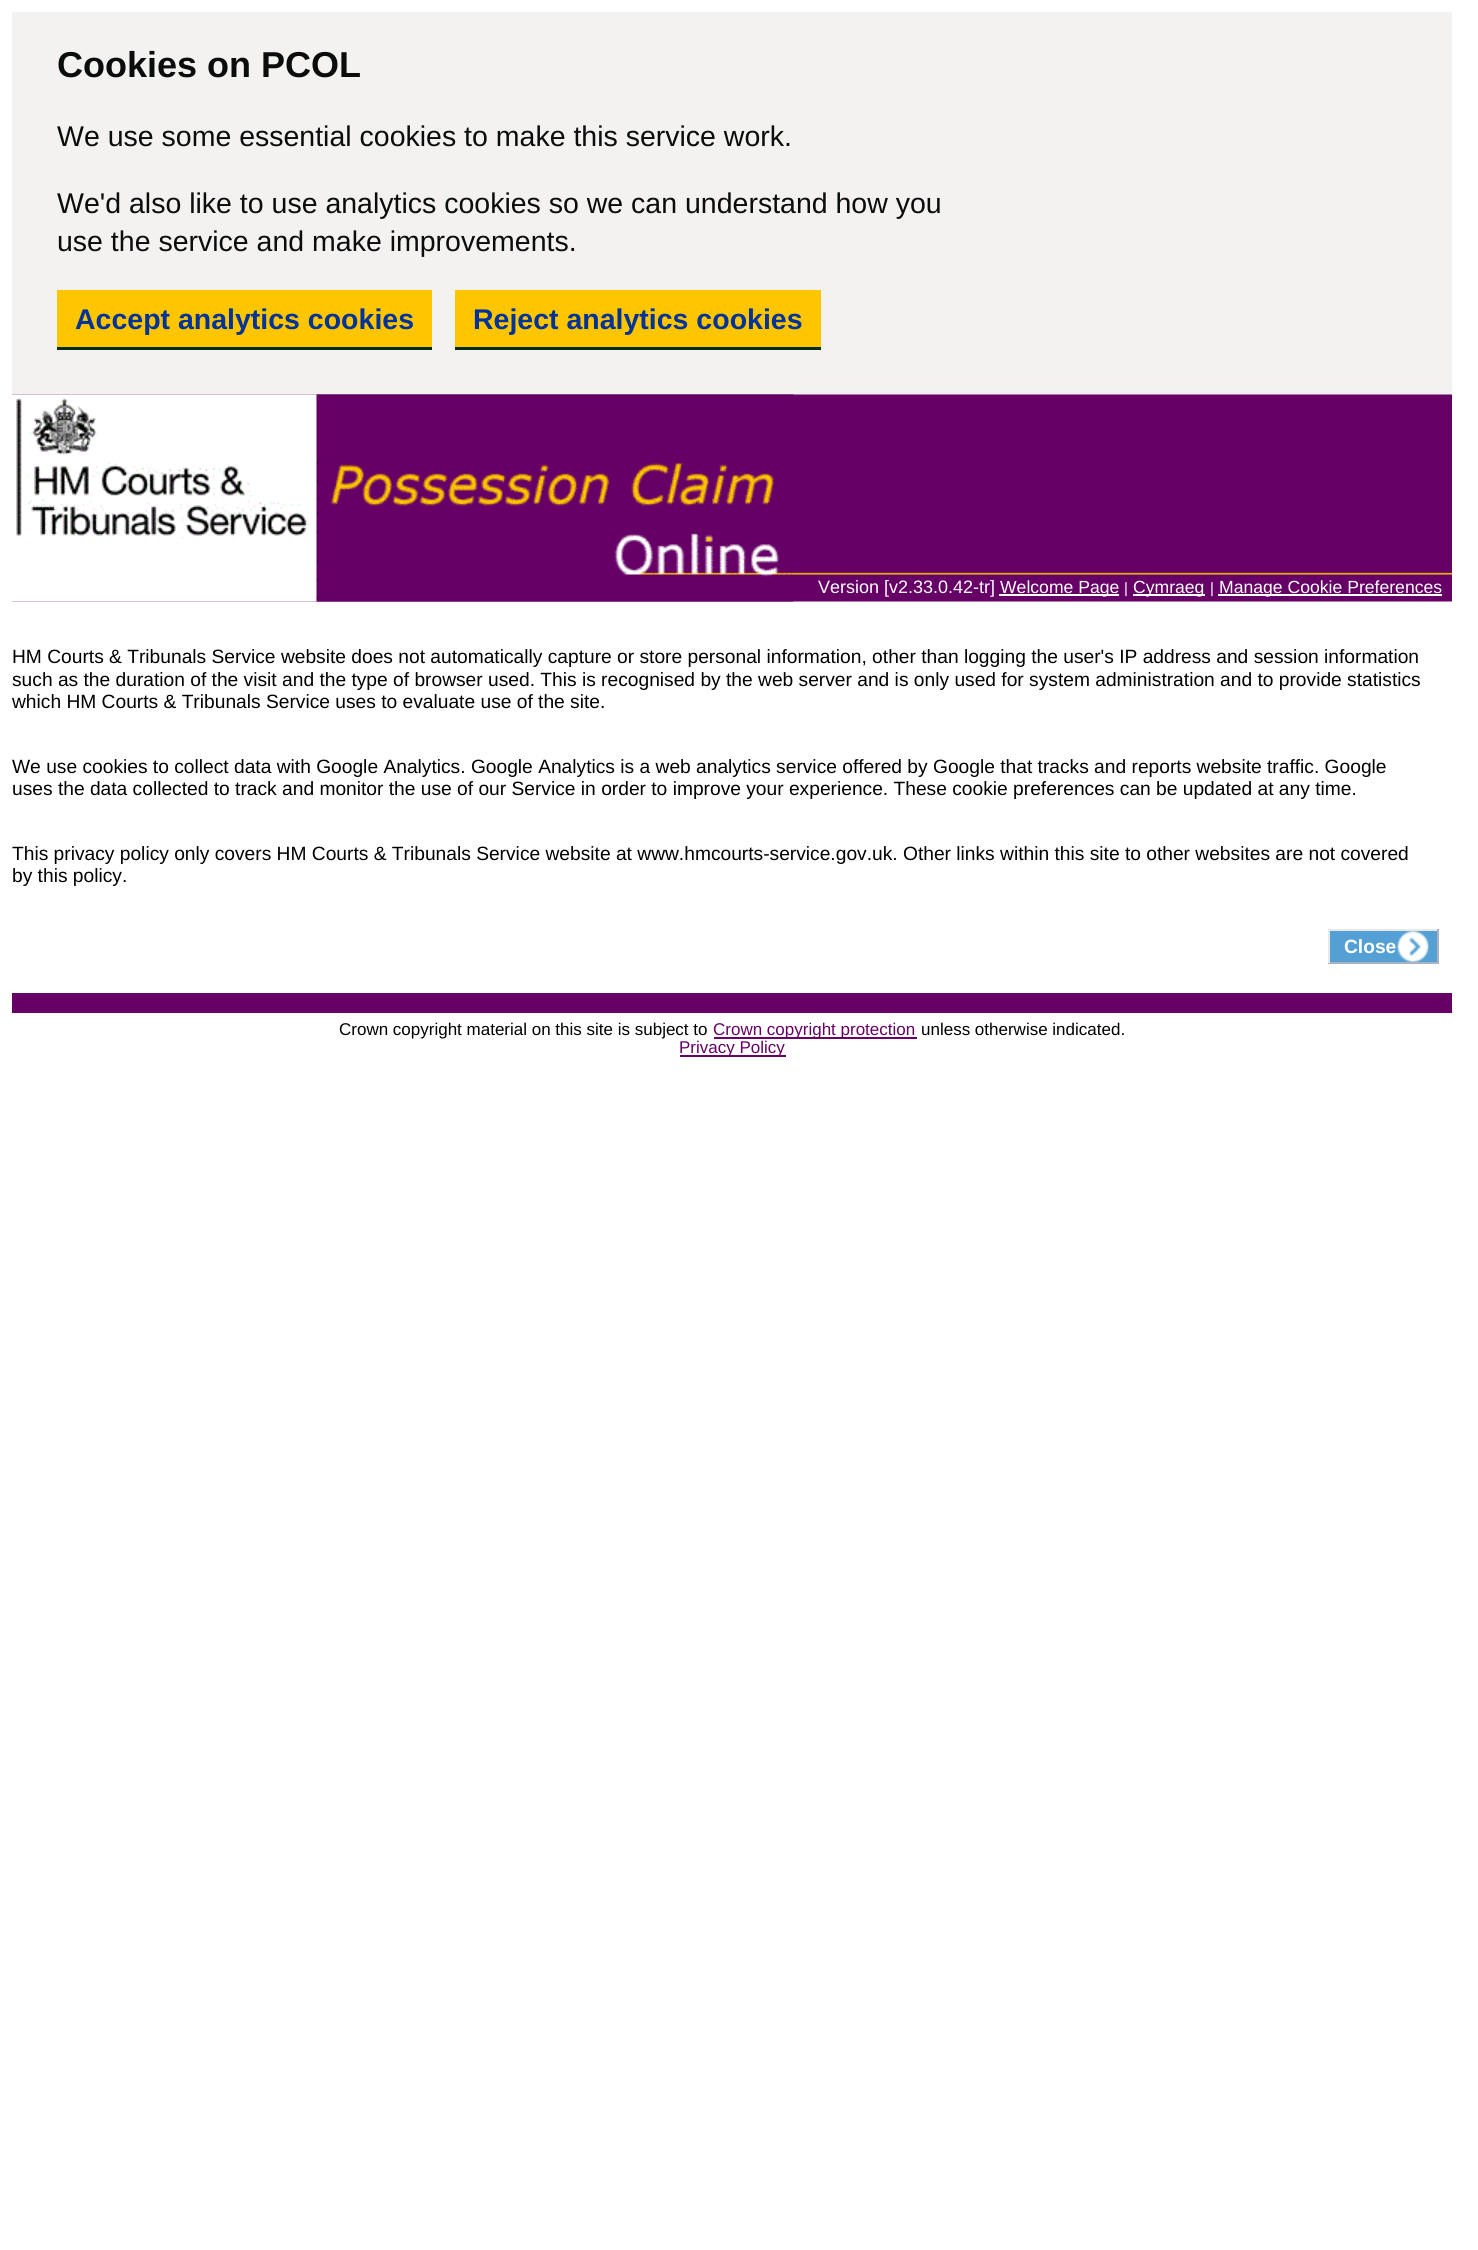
#include <cairo.h>
#include <math.h>
#include <stddef.h>


static void picture(cairo_t *cr, const char *path, double x, double y, double w, double h) {
    cairo_surface_t *image = cairo_image_surface_create_from_png(path);
    cairo_save(cr);
    cairo_set_source_surface(cr, image, x, y);
    cairo_rectangle(cr, x, y, w, h);
    cairo_fill(cr);
    cairo_restore(cr);
    cairo_surface_destroy(image);
}

int main(void) {
    cairo_surface_t *surface = cairo_image_surface_create(CAIRO_FORMAT_RGB24, 1478, 2250);
    cairo_t *cr = cairo_create(surface);
    cairo_font_options_t *options = cairo_font_options_create();
    cairo_font_options_set_hint_metrics(options, CAIRO_HINT_METRICS_OFF);
    cairo_font_options_set_hint_style(options, CAIRO_HINT_STYLE_NONE);
    cairo_set_font_options(cr, options);
    cairo_set_miter_limit(cr, 4);
    cairo_set_source_rgb(cr, 1, 1, 1);
    cairo_paint(cr);
    cairo_set_source_rgb(cr, 0.953, 0.949, 0.945);
    cairo_rectangle(cr, 12, 12, 1440, 383);
    cairo_fill(cr);
    cairo_select_font_face(cr, "Liberation Sans", CAIRO_FONT_SLANT_NORMAL, CAIRO_FONT_WEIGHT_BOLD);
    cairo_set_font_size(cr, 36);
    cairo_set_source_rgb(cr, 0.043, 0.047, 0.047);
    cairo_move_to(cr, 57, 77);
    cairo_show_text(cr, "Cookies on PCOL");
    cairo_select_font_face(cr, "Liberation Sans", CAIRO_FONT_SLANT_NORMAL, CAIRO_FONT_WEIGHT_NORMAL);
    cairo_set_font_size(cr, 28.5);
    cairo_move_to(cr, 57, 146);
    cairo_show_text(cr, "We use some essential cookies to make this service work.");
    cairo_move_to(cr, 57, 213);
    cairo_show_text(cr, "We'd also like to use analytics cookies so we can understand how you");
    cairo_move_to(cr, 57, 251);
    cairo_show_text(cr, "use the service and make improvements.");
    cairo_set_source_rgb(cr, 0, 0.176, 0.094);
    cairo_rectangle(cr, 57, 347, 375, 3);
    cairo_fill(cr);
    cairo_set_source_rgb(cr, 1, 0.776, 0);
    cairo_rectangle(cr, 57, 290, 375, 57);
    cairo_fill(cr);
    cairo_select_font_face(cr, "Liberation Sans", CAIRO_FONT_SLANT_NORMAL, CAIRO_FONT_WEIGHT_BOLD);
    cairo_set_source_rgb(cr, 0, 0.2, 0.6);
    cairo_move_to(cr, 75, 329);
    cairo_show_text(cr, "Accept analytics cookies");
    cairo_set_source_rgb(cr, 0, 0.176, 0.094);
    cairo_new_path(cr);
    cairo_move_to(cr, 455, 346);
    cairo_line_to(cr, 455, 350);
    cairo_line_to(cr, 821, 350);
    cairo_line_to(cr, 821, 293);
    cairo_line_to(cr, 820, 293);
    cairo_line_to(cr, 820, 346);
    cairo_close_path(cr);
    cairo_fill(cr);
    cairo_set_source_rgb(cr, 1, 0.776, 0);
    cairo_rectangle(cr, 455, 290, 366, 57);
    cairo_fill(cr);
    cairo_set_source_rgb(cr, 0, 0.2, 0.6);
    cairo_move_to(cr, 473, 329);
    cairo_show_text(cr, "Reject analytics cookies");
    picture(cr, "img1.png", 12, 394, 1440, 208);
    picture(cr, "img2.png", 12, 394, 782, 208);
    cairo_select_font_face(cr, "Liberation Sans", CAIRO_FONT_SLANT_NORMAL, CAIRO_FONT_WEIGHT_NORMAL);
    cairo_set_font_size(cr, 18);
    cairo_set_source_rgb(cr, 1, 1, 1);
    cairo_move_to(cr, 818, 593);
    cairo_show_text(cr, "Version [v2.33.0.42-tr]");
    cairo_rectangle(cr, 999, 594, 120, 2);
    cairo_fill(cr);
    cairo_set_font_size(cr, 17.6);
    cairo_move_to(cr, 1000, 593);
    cairo_show_text(cr, "Welcome Page");
    cairo_set_font_size(cr, 15);
    cairo_move_to(cr, 1124, 593);
    cairo_show_text(cr, "|");
    cairo_rectangle(cr, 1133, 594, 72, 2);
    cairo_fill(cr);
    cairo_set_font_size(cr, 17.6);
    cairo_move_to(cr, 1133, 593);
    cairo_show_text(cr, "Cymraeg");
    cairo_set_font_size(cr, 15);
    cairo_move_to(cr, 1210, 593);
    cairo_show_text(cr, "|");
    cairo_rectangle(cr, 1218, 594, 224, 2);
    cairo_fill(cr);
    cairo_set_font_size(cr, 17.6);
    cairo_move_to(cr, 1219, 593);
    cairo_show_text(cr, "Manage Cookie Preferences");
    cairo_set_font_size(cr, 19.2);
    cairo_set_source_rgb(cr, 0, 0, 0);
    cairo_move_to(cr, 12, 663);
    cairo_show_text(cr, "HM Courts & Tribunals Service website does not automatically capture or store personal information, other than logging the user's IP address and session information");
    cairo_move_to(cr, 12, 686);
    cairo_show_text(cr, "such as the duration of the visit and the type of browser used. This is recognised by the web server and is only used for system administration and to provide statistics");
    cairo_move_to(cr, 12, 708);
    cairo_show_text(cr, "which HM Courts & Tribunals Service uses to evaluate use of the site.");
    cairo_move_to(cr, 12, 773);
    cairo_show_text(cr, "We use cookies to collect data with Google Analytics. Google Analytics is a web analytics service offered by Google that tracks and reports website traffic. Google");
    cairo_move_to(cr, 12, 795);
    cairo_show_text(cr, "uses the data collected to track and monitor the use of our Service in order to improve your experience. These cookie preferences can be updated at any time.");
    cairo_move_to(cr, 12, 860);
    cairo_show_text(cr, "This privacy policy only covers HM Courts & Tribunals Service website at www.hmcourts-service.gov.uk. Other links within this site to other websites are not covered");
    cairo_move_to(cr, 12, 882);
    cairo_show_text(cr, "by this policy.");
    cairo_set_source_rgb(cr, 0.329, 0.627, 0.831);
    cairo_rectangle(cr, 1330, 931, 107, 31);
    cairo_fill(cr);
    picture(cr, "img3.png", 1396, 931, 34, 31);
    cairo_set_source_rgb(cr, 0.91, 0.91, 0.91);
    cairo_rectangle(cr, 1328, 929, 111, 2);
    cairo_fill(cr);
    cairo_set_source_rgb(cr, 0.663, 0.698, 0.757);
    cairo_rectangle(cr, 1437, 929, 2, 34);
    cairo_fill(cr);
    cairo_rectangle(cr, 1328, 962, 111, 2);
    cairo_fill(cr);
    cairo_set_source_rgb(cr, 0.91, 0.91, 0.91);
    cairo_rectangle(cr, 1328, 929, 2, 34);
    cairo_fill(cr);
    cairo_select_font_face(cr, "Liberation Sans", CAIRO_FONT_SLANT_NORMAL, CAIRO_FONT_WEIGHT_BOLD);
    cairo_set_source_rgb(cr, 1, 1, 1);
    cairo_move_to(cr, 1344, 953);
    cairo_show_text(cr, "Close");
    cairo_set_source_rgb(cr, 0.4, 0, 0.4);
    cairo_rectangle(cr, 12, 993, 1440, 20);
    cairo_fill(cr);
    cairo_select_font_face(cr, "Liberation Sans", CAIRO_FONT_SLANT_NORMAL, CAIRO_FONT_WEIGHT_NORMAL);
    cairo_set_font_size(cr, 17);
    cairo_set_source_rgb(cr, 0, 0, 0);
    cairo_move_to(cr, 339, 1035);
    cairo_show_text(cr, "Crown copyright material on this site is subject to");
    cairo_set_source_rgb(cr, 0.4, 0, 0.4);
    cairo_rectangle(cr, 714, 1037, 203, 2);
    cairo_fill(cr);
    cairo_move_to(cr, 713, 1035);
    cairo_show_text(cr, "Crown copyright protection");
    cairo_set_source_rgb(cr, 0, 0, 0);
    cairo_move_to(cr, 921, 1035);
    cairo_show_text(cr, "unless otherwise indicated.");
    cairo_set_source_rgb(cr, 0.4, 0, 0.4);
    cairo_rectangle(cr, 680, 1055, 106, 2);
    cairo_fill(cr);
    cairo_move_to(cr, 679, 1053);
    cairo_show_text(cr, "Privacy Policy");
    cairo_surface_write_to_png(surface, "page.png");
    cairo_font_options_destroy(options);
    cairo_destroy(cr);
    cairo_surface_destroy(surface);
    return 0;
}
